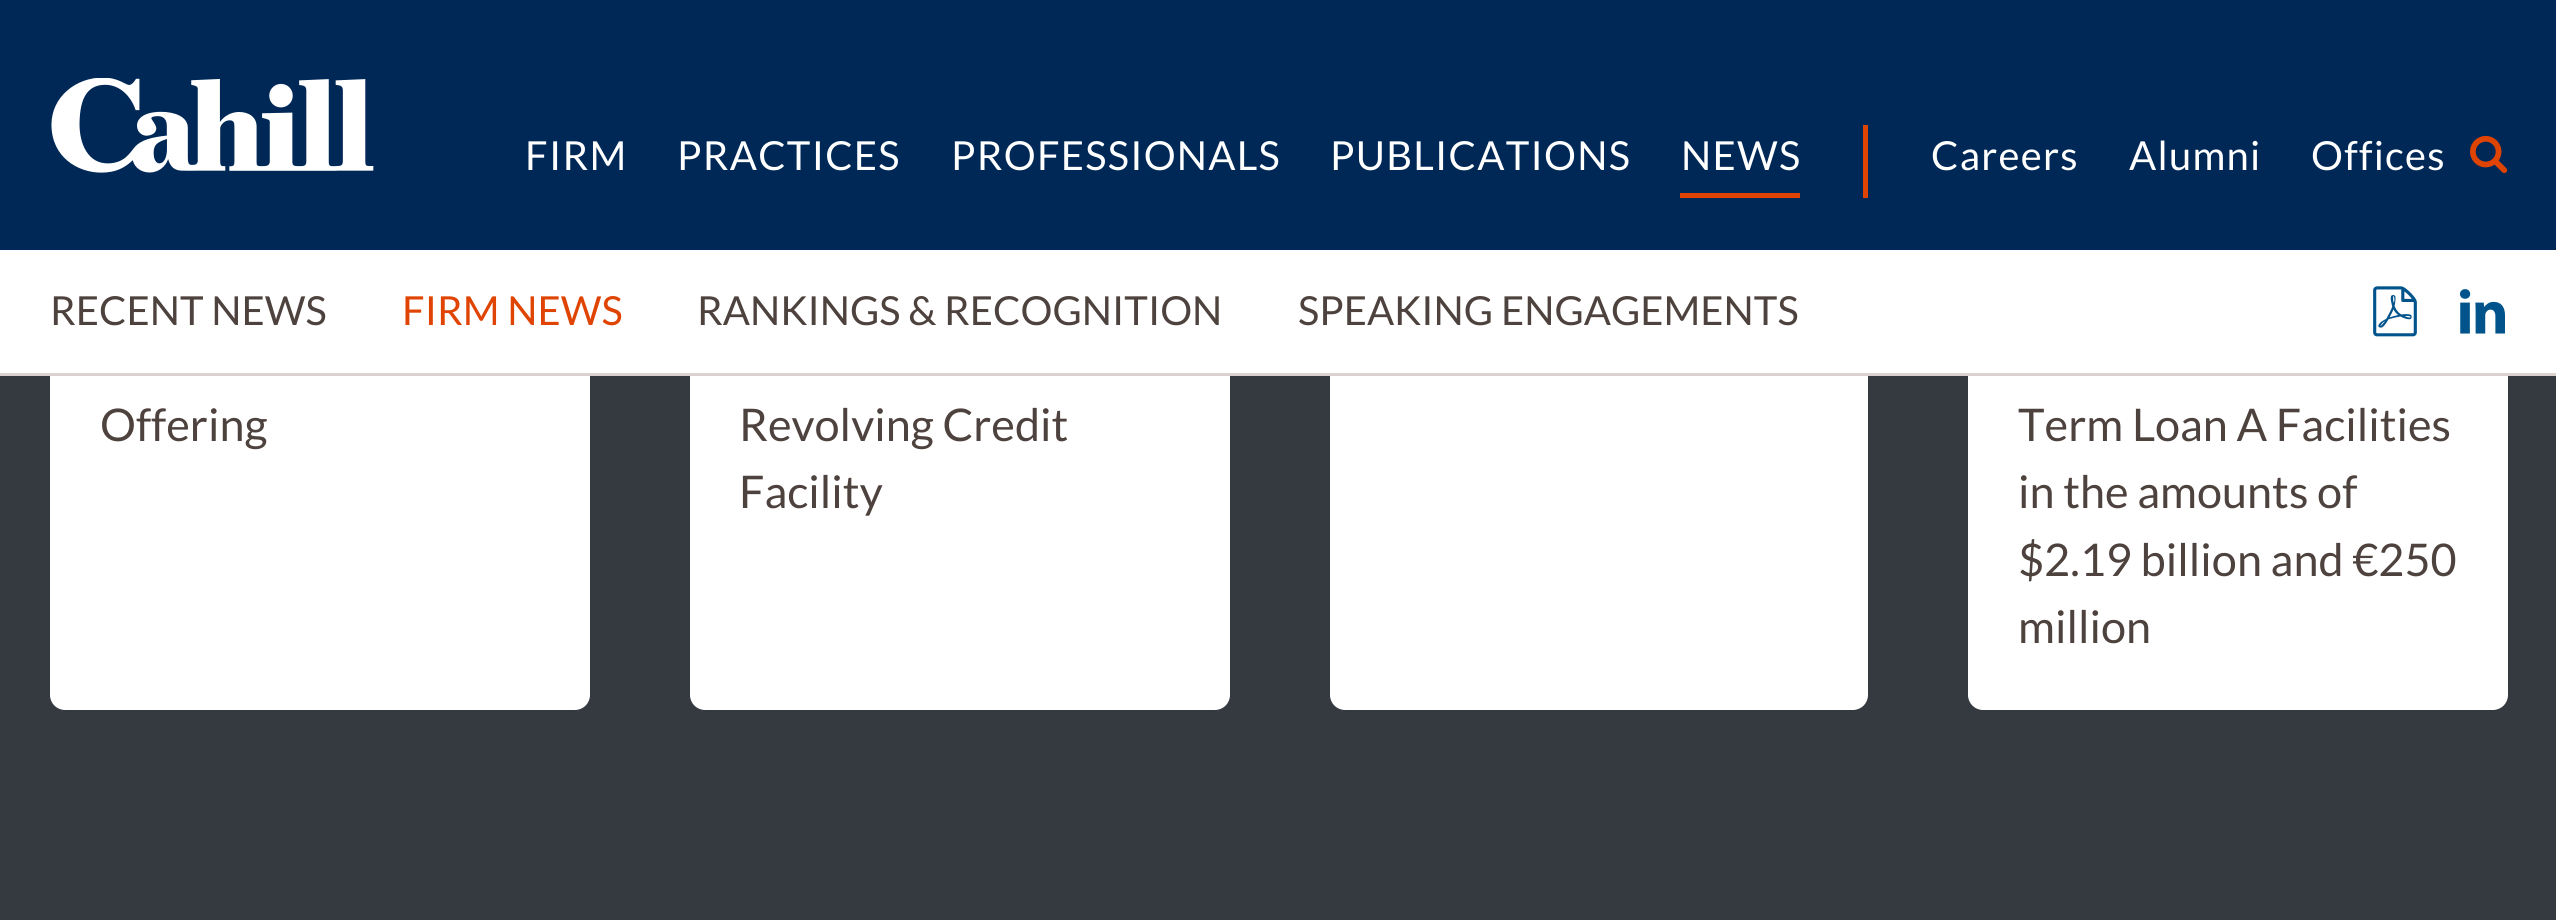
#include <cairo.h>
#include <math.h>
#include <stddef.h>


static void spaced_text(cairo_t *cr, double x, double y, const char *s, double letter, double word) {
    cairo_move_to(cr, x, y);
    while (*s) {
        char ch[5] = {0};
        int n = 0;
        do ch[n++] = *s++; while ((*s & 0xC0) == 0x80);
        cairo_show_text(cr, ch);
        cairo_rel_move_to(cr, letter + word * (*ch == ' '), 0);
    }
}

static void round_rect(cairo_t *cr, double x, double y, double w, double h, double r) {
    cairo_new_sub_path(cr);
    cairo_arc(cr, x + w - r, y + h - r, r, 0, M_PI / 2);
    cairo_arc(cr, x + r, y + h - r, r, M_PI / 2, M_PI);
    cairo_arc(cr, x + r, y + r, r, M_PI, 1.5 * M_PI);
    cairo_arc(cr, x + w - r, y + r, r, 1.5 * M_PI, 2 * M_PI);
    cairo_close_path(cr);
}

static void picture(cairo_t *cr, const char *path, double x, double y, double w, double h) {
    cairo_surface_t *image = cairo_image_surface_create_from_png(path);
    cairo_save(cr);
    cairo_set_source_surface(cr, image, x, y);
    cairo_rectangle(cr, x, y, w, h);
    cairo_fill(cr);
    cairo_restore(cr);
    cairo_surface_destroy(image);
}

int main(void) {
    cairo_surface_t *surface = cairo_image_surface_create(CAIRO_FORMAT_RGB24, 2556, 920);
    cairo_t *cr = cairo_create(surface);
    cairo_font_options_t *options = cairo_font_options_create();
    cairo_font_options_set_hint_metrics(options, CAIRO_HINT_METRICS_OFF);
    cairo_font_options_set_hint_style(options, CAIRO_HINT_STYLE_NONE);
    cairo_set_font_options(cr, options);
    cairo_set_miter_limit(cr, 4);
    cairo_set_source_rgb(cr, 0.204, 0.227, 0.251);
    cairo_paint(cr);
    cairo_set_source_rgb(cr, 1, 1, 1);
    round_rect(cr, 50, -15, 540, 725, 15);
    cairo_fill(cr);
    round_rect(cr, 690, -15, 540, 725, 15);
    cairo_fill(cr);
    round_rect(cr, 1330, -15, 538, 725, 15);
    cairo_fill(cr);
    round_rect(cr, 1968, -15, 540, 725, 15);
    cairo_fill(cr);
    cairo_set_source_rgb(cr, 0, 0.157, 0.341);
    cairo_rectangle(cr, 0, 0, 2556, 250);
    cairo_fill(cr);
    picture(cr, "img1.png", 51, 78, 323, 95);
    cairo_select_font_face(cr, "Lato", CAIRO_FONT_SLANT_NORMAL, CAIRO_FONT_WEIGHT_NORMAL);
    cairo_set_font_size(cr, 40);
    cairo_set_source_rgb(cr, 1, 1, 1);
    spaced_text(cr, 525, 170, "FIRM", 1.25, 0);
    spaced_text(cr, 677, 170, "PRACTICES", 1.25, 0);
    spaced_text(cr, 951, 170, "PROFESSIONALS", 1.25, 0);
    spaced_text(cr, 1330, 170, "PUBLICATIONS", 1.25, 0);
    cairo_set_source_rgb(cr, 0.878, 0.267, 0.012);
    cairo_rectangle(cr, 1680, 193, 120, 5);
    cairo_fill(cr);
    cairo_set_source_rgb(cr, 1, 1, 1);
    spaced_text(cr, 1681, 170, "NEWS", 1.25, 0);
    cairo_set_source_rgb(cr, 0.878, 0.267, 0.012);
    cairo_rectangle(cr, 1863, 125, 5, 73);
    cairo_fill(cr);
    cairo_set_source_rgb(cr, 1, 1, 1);
    spaced_text(cr, 1931, 170, "Careers", 1.25, 0);
    spaced_text(cr, 2129, 170, "Alumni", 1.25, 0);
    spaced_text(cr, 2311, 170, "Offices", 1.25, 0);
    picture(cr, "img2.png", 2470, 135, 38, 39);
    cairo_rectangle(cr, 0, 250, 2556, 123);
    cairo_fill(cr);
    cairo_set_source_rgb(cr, 0.851, 0.824, 0.812);
    cairo_rectangle(cr, 0, 373, 2556, 3);
    cairo_fill(cr);
    cairo_set_source_rgb(cr, 0.302, 0.259, 0.239);
    cairo_move_to(cr, 50, 325);
    cairo_show_text(cr, "RECENT NEWS");
    cairo_set_source_rgb(cr, 0.878, 0.267, 0.012);
    cairo_move_to(cr, 402, 325);
    cairo_show_text(cr, "FIRM NEWS");
    cairo_set_source_rgb(cr, 0.302, 0.259, 0.239);
    cairo_move_to(cr, 697, 325);
    cairo_show_text(cr, "RANKINGS & RECOGNITION");
    cairo_move_to(cr, 1298, 325);
    cairo_show_text(cr, "SPEAKING ENGAGEMENTS");
    picture(cr, "img3.png", 2373, 286, 44, 51);
    picture(cr, "img4.png", 2460, 289, 45, 45);
    cairo_set_font_size(cr, 45);
    cairo_move_to(cr, 100, 441);
    cairo_show_text(cr, "Offering");
    cairo_move_to(cr, 739, 441);
    cairo_show_text(cr, "Revolving Credit");
    cairo_move_to(cr, 739, 508);
    cairo_show_text(cr, "Facility");
    cairo_move_to(cr, 2018, 441);
    cairo_show_text(cr, "Term Loan A Facilities");
    cairo_move_to(cr, 2018, 508);
    cairo_show_text(cr, "in the amounts of");
    cairo_move_to(cr, 2018, 576);
    cairo_show_text(cr, "$2.19 billion and €250");
    cairo_move_to(cr, 2018, 643);
    cairo_show_text(cr, "million");
    cairo_surface_write_to_png(surface, "page.png");
    cairo_font_options_destroy(options);
    cairo_destroy(cr);
    cairo_surface_destroy(surface);
    return 0;
}
